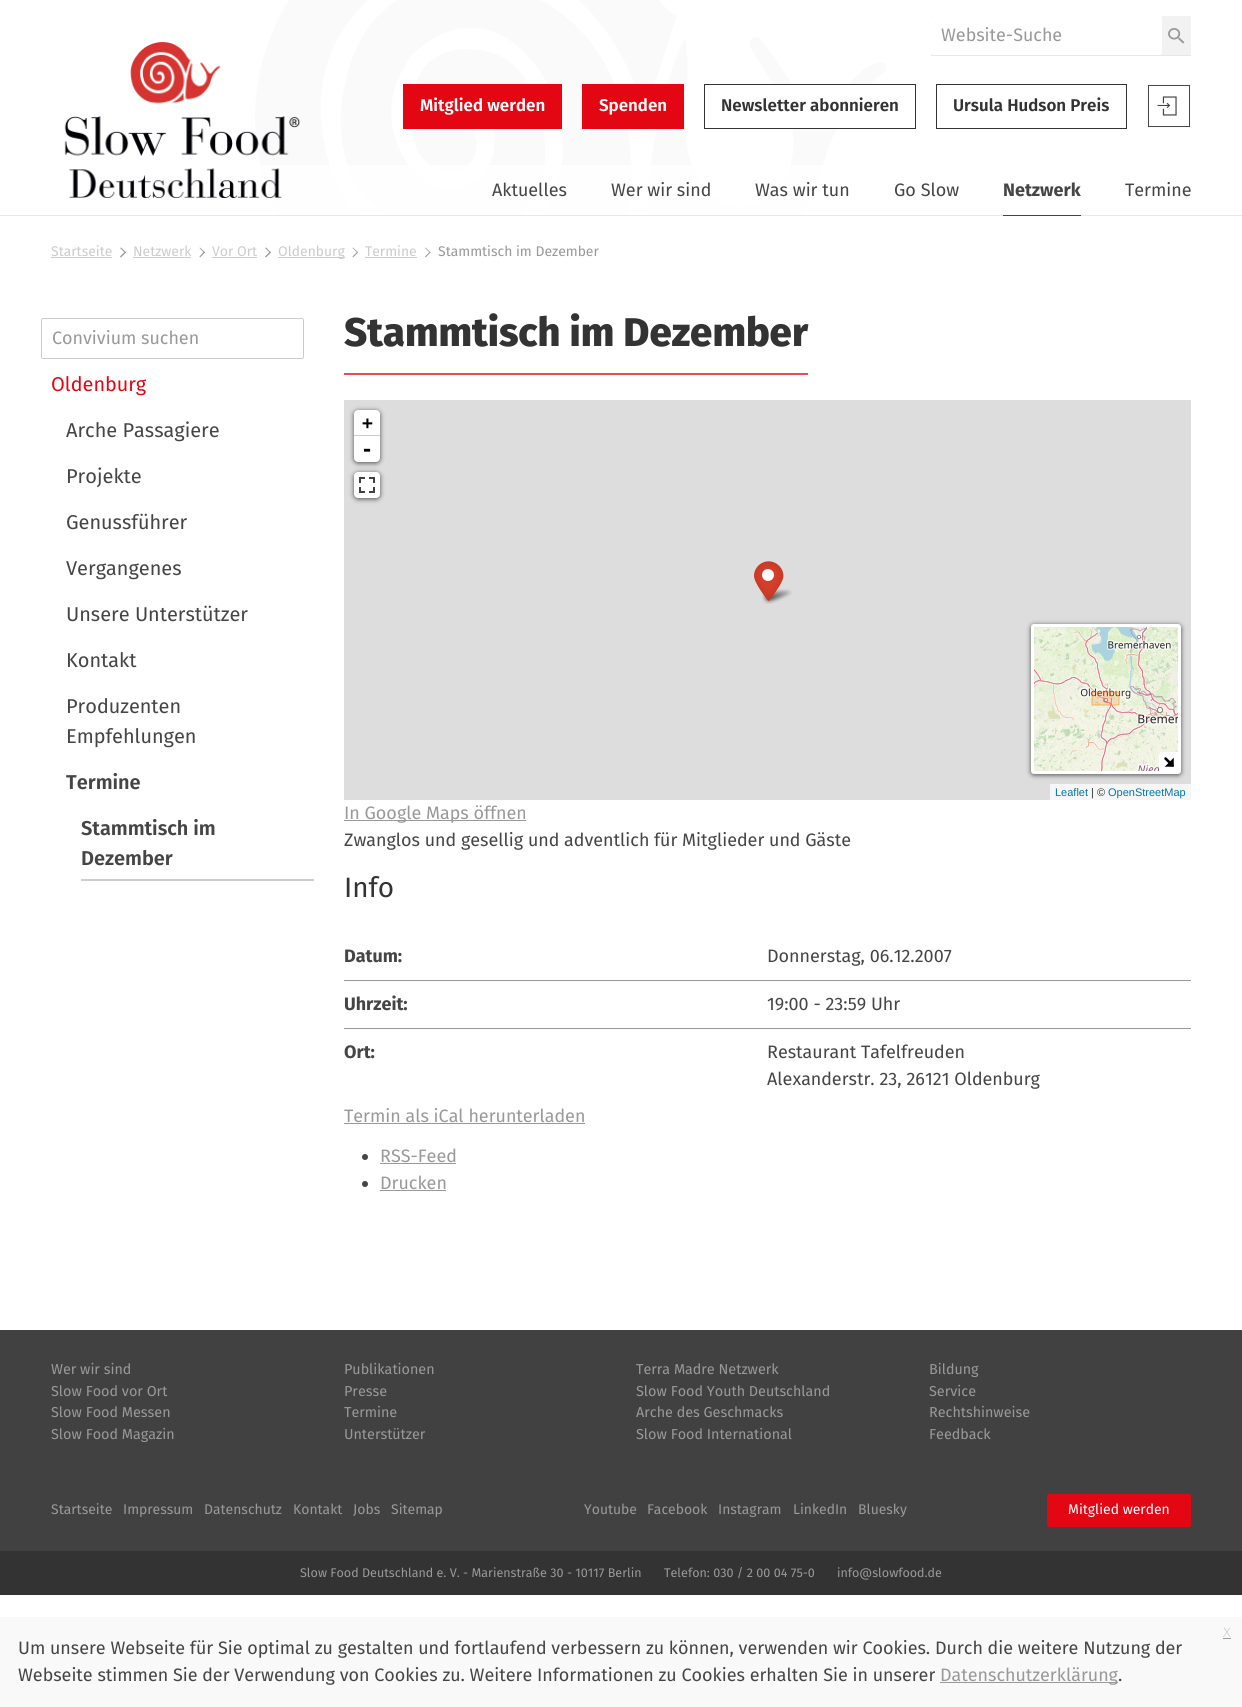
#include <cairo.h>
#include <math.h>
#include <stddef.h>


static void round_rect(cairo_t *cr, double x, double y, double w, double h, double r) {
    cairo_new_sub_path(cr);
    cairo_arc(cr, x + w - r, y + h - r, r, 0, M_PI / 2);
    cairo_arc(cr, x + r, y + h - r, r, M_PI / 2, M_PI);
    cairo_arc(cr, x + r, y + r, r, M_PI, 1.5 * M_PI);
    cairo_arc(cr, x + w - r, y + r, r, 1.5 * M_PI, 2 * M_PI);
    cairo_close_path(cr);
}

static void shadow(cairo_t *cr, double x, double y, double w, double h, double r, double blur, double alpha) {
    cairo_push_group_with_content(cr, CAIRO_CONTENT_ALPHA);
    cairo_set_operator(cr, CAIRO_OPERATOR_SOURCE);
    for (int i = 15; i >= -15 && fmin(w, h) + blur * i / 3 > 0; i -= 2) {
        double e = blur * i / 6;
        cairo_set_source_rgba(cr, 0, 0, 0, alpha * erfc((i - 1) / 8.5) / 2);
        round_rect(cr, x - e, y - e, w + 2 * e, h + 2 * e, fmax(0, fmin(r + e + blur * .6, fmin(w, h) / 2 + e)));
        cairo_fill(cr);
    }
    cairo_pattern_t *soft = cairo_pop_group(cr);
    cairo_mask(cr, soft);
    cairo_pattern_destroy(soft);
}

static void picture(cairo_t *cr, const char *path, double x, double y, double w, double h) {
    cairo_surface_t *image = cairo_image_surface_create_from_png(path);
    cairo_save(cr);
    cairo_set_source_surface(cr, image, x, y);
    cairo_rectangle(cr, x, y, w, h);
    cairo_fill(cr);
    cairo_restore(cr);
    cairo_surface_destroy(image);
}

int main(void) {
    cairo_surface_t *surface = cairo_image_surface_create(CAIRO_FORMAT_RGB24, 1242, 1707);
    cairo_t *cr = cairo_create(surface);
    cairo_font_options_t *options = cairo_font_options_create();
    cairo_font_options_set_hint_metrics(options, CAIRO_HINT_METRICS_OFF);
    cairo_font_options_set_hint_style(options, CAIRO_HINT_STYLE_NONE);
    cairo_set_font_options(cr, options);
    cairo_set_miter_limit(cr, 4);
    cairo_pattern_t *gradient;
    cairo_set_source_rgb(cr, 1, 1, 1);
    cairo_paint(cr);
    picture(cr, "img1.png", 255, 0, 631, 215);
    cairo_set_source_rgb(cr, 0.906, 0.906, 0.906);
    cairo_rectangle(cr, 0, 215, 1242, 1);
    cairo_fill(cr);
    gradient = cairo_pattern_create_linear(621, 215, 621, 16);
    cairo_pattern_add_color_stop_rgba(gradient, 0, 1, 1, 1, 0.75);
    cairo_pattern_add_color_stop_rgba(gradient, 0.25, 1, 1, 1, 0.75);
    cairo_pattern_add_color_stop_rgba(gradient, 0.25, 1, 1, 1, 0);
    cairo_pattern_add_color_stop_rgba(gradient, 1, 0, 0, 0, 0);
    cairo_set_source(cr, gradient);
    cairo_pattern_destroy(gradient);
    cairo_rectangle(cr, 261, 165, 562, 50);
    cairo_fill(cr);
    picture(cr, "img2.png", 64, 42, 237, 156);
    cairo_set_source_rgb(cr, 0.949, 0.949, 0.949);
    cairo_rectangle(cr, 931, 16, 260, 39);
    cairo_fill(cr);
    cairo_set_source_rgb(cr, 0.906, 0.906, 0.906);
    cairo_rectangle(cr, 931, 55, 260, 1);
    cairo_fill(cr);
    cairo_set_source_rgb(cr, 1, 1, 1);
    round_rect(cr, 931, 16, 231, 39, 2);
    cairo_fill(cr);
    cairo_select_font_face(cr, "Fira Sans", CAIRO_FONT_SLANT_NORMAL, CAIRO_FONT_WEIGHT_NORMAL);
    cairo_set_font_size(cr, 18);
    cairo_set_source_rgb(cr, 0.6, 0.6, 0.6);
    cairo_move_to(cr, 941, 41);
    cairo_show_text(cr, "Website-Suche");
    picture(cr, "img3.png", 1168, 28, 17, 16);
    cairo_set_source_rgb(cr, 0.89, 0.024, 0.075);
    cairo_rectangle(cr, 403, 84, 159, 45);
    cairo_fill(cr);
    cairo_select_font_face(cr, "Fira Sans SemiBold", CAIRO_FONT_SLANT_NORMAL, CAIRO_FONT_WEIGHT_NORMAL);
    cairo_set_font_size(cr, 17);
    cairo_set_source_rgb(cr, 1, 1, 1);
    cairo_move_to(cr, 420, 111);
    cairo_show_text(cr, "Mitglied werden");
    cairo_set_source_rgb(cr, 0.89, 0.024, 0.075);
    cairo_rectangle(cr, 582, 84, 102, 45);
    cairo_fill(cr);
    cairo_set_source_rgb(cr, 1, 1, 1);
    cairo_move_to(cr, 599, 111);
    cairo_show_text(cr, "Spenden");
    cairo_rectangle(cr, 774, 85, 95, 43);
    cairo_fill(cr);
    cairo_rectangle(cr, 704.5, 84.5, 211, 44);
    cairo_set_source_rgb(cr, 0.2, 0.2, 0.2);
    cairo_set_line_width(cr, 1);
    cairo_stroke(cr);
    cairo_move_to(cr, 721, 111);
    cairo_show_text(cr, "Newsletter abonnieren");
    cairo_rectangle(cr, 936.5, 84.5, 190, 44);
    cairo_stroke(cr);
    cairo_move_to(cr, 953, 111);
    cairo_show_text(cr, "Ursula Hudson Preis");
    cairo_select_font_face(cr, "Fira Sans", CAIRO_FONT_SLANT_NORMAL, CAIRO_FONT_WEIGHT_NORMAL);
    cairo_set_font_size(cr, 18);
    cairo_set_source_rgb(cr, 0.271, 0.271, 0.271);
    cairo_move_to(cr, 492, 196);
    cairo_show_text(cr, "Aktuelles");
    cairo_move_to(cr, 611, 196);
    cairo_show_text(cr, "Wer wir sind");
    cairo_move_to(cr, 755, 196);
    cairo_show_text(cr, "Was wir tun");
    cairo_move_to(cr, 894, 196);
    cairo_show_text(cr, "Go Slow");
    cairo_rectangle(cr, 1003, 215, 78, 1);
    cairo_fill(cr);
    cairo_select_font_face(cr, "Fira Sans", CAIRO_FONT_SLANT_NORMAL, CAIRO_FONT_WEIGHT_BOLD);
    cairo_move_to(cr, 1003, 196);
    cairo_show_text(cr, "Netzwerk");
    cairo_select_font_face(cr, "Fira Sans", CAIRO_FONT_SLANT_NORMAL, CAIRO_FONT_WEIGHT_NORMAL);
    cairo_move_to(cr, 1125, 196);
    cairo_show_text(cr, "Termine");
    picture(cr, "img4.png", 1147, 84, 44, 44);
    cairo_set_font_size(cr, 14);
    cairo_set_source_rgb(cr, 0.8, 0.8, 0.8);
    cairo_move_to(cr, 51, 256);
    cairo_show_text(cr, "Startseite");
    cairo_rectangle(cr, 51, 257, 61, 1);
    cairo_fill(cr);
    cairo_set_source_rgb(cr, 0.6, 0.6, 0.6);
    cairo_new_path(cr);
    cairo_move_to(cr, 121, 247.5);
    cairo_line_to(cr, 126, 252.5);
    cairo_line_to(cr, 125, 253);
    cairo_line_to(cr, 120, 248);
    cairo_close_path(cr);
    cairo_fill(cr);
    cairo_new_path(cr);
    cairo_move_to(cr, 120, 256.5);
    cairo_line_to(cr, 125, 251.5);
    cairo_line_to(cr, 126, 252.5);
    cairo_line_to(cr, 121, 257.5);
    cairo_close_path(cr);
    cairo_fill(cr);
    cairo_set_source_rgb(cr, 0.8, 0.8, 0.8);
    cairo_move_to(cr, 133, 256);
    cairo_show_text(cr, "Netzwerk");
    cairo_rectangle(cr, 133, 257, 58, 1);
    cairo_fill(cr);
    cairo_set_source_rgb(cr, 0.6, 0.6, 0.6);
    cairo_new_path(cr);
    cairo_move_to(cr, 200, 247.5);
    cairo_line_to(cr, 205, 252.5);
    cairo_line_to(cr, 204, 253);
    cairo_line_to(cr, 199.5, 248);
    cairo_close_path(cr);
    cairo_fill(cr);
    cairo_new_path(cr);
    cairo_move_to(cr, 199.5, 256.5);
    cairo_line_to(cr, 204, 251.5);
    cairo_line_to(cr, 205, 252.5);
    cairo_line_to(cr, 200, 257.5);
    cairo_close_path(cr);
    cairo_fill(cr);
    cairo_set_source_rgb(cr, 0.8, 0.8, 0.8);
    cairo_move_to(cr, 212, 256);
    cairo_show_text(cr, "Vor Ort");
    cairo_rectangle(cr, 212, 257, 45, 1);
    cairo_fill(cr);
    cairo_set_source_rgb(cr, 0.6, 0.6, 0.6);
    cairo_new_path(cr);
    cairo_move_to(cr, 266, 247.5);
    cairo_line_to(cr, 271, 252.5);
    cairo_line_to(cr, 270, 253);
    cairo_line_to(cr, 265, 248);
    cairo_close_path(cr);
    cairo_fill(cr);
    cairo_new_path(cr);
    cairo_move_to(cr, 265, 256.5);
    cairo_line_to(cr, 270, 251.5);
    cairo_line_to(cr, 271, 252.5);
    cairo_line_to(cr, 266, 257.5);
    cairo_close_path(cr);
    cairo_fill(cr);
    cairo_set_source_rgb(cr, 0.8, 0.8, 0.8);
    cairo_rectangle(cr, 278, 257, 67, 1);
    cairo_fill(cr);
    cairo_move_to(cr, 278, 256);
    cairo_show_text(cr, "Oldenburg");
    cairo_set_source_rgb(cr, 0.6, 0.6, 0.6);
    cairo_new_path(cr);
    cairo_move_to(cr, 353, 247.5);
    cairo_line_to(cr, 358, 252.5);
    cairo_line_to(cr, 357.5, 253);
    cairo_line_to(cr, 352.5, 248);
    cairo_close_path(cr);
    cairo_fill(cr);
    cairo_new_path(cr);
    cairo_move_to(cr, 352.5, 256.5);
    cairo_line_to(cr, 357.5, 251.5);
    cairo_line_to(cr, 358, 252.5);
    cairo_line_to(cr, 353, 257.5);
    cairo_close_path(cr);
    cairo_fill(cr);
    cairo_set_source_rgb(cr, 0.8, 0.8, 0.8);
    cairo_move_to(cr, 365, 256);
    cairo_show_text(cr, "Termine");
    cairo_rectangle(cr, 365, 257, 52, 1);
    cairo_fill(cr);
    cairo_set_source_rgb(cr, 0.6, 0.6, 0.6);
    cairo_new_path(cr);
    cairo_move_to(cr, 425.5, 247.5);
    cairo_line_to(cr, 430.5, 252.5);
    cairo_line_to(cr, 430, 253);
    cairo_line_to(cr, 425, 248);
    cairo_close_path(cr);
    cairo_fill(cr);
    cairo_new_path(cr);
    cairo_move_to(cr, 425, 256.5);
    cairo_line_to(cr, 430, 251.5);
    cairo_line_to(cr, 430.5, 252.5);
    cairo_line_to(cr, 425.5, 257.5);
    cairo_close_path(cr);
    cairo_fill(cr);
    cairo_move_to(cr, 438, 256);
    cairo_show_text(cr, "Stammtisch im Dezember");
    cairo_set_source_rgb(cr, 0.973, 0.973, 0.976);
    cairo_rectangle(cr, 0, 1617, 1242, 90);
    cairo_fill(cr);
    cairo_select_font_face(cr, "Fira Sans Thin", CAIRO_FONT_SLANT_NORMAL, CAIRO_FONT_WEIGHT_NORMAL);
    cairo_set_font_size(cr, 18);
    cairo_set_source_rgb(cr, 0.6, 0.6, 0.6);
    cairo_move_to(cr, 1223, 1637);
    cairo_show_text(cr, "x");
    cairo_rectangle(cr, 1223, 1638, 8, 1);
    cairo_fill(cr);
    cairo_select_font_face(cr, "Fira Sans", CAIRO_FONT_SLANT_NORMAL, CAIRO_FONT_WEIGHT_NORMAL);
    cairo_set_source_rgb(cr, 0.271, 0.271, 0.271);
    cairo_move_to(cr, 18, 1654);
    cairo_show_text(cr, "Um unsere Webseite für Sie optimal zu gestalten und fortlaufend verbessern zu können, verwenden wir Cookies. Durch die weitere Nutzung der");
    cairo_move_to(cr, 18, 1681);
    cairo_show_text(cr, "Webseite stimmen Sie der Verwendung von Cookies zu. Weitere Informationen zu Cookies erhalten Sie in unserer");
    cairo_set_source_rgb(cr, 0.6, 0.6, 0.6);
    cairo_rectangle(cr, 940, 1682, 178, 1);
    cairo_fill(cr);
    cairo_move_to(cr, 940, 1681);
    cairo_show_text(cr, "Datenschutzerklärung");
    cairo_set_source_rgb(cr, 0.271, 0.271, 0.271);
    cairo_move_to(cr, 1118, 1681);
    cairo_show_text(cr, ".");
    round_rect(cr, 41.5, 318.5, 262, 40, 1.5);
    cairo_set_source_rgb(cr, 0.8, 0.8, 0.8);
    cairo_stroke(cr);
    cairo_set_source_rgb(cr, 0.6, 0.6, 0.6);
    cairo_move_to(cr, 52, 344);
    cairo_show_text(cr, "Convivium suchen");
    cairo_set_font_size(cr, 20);
    cairo_set_source_rgb(cr, 0.89, 0.024, 0.075);
    cairo_move_to(cr, 51, 391);
    cairo_show_text(cr, "Oldenburg");
    cairo_set_source_rgb(cr, 0.271, 0.271, 0.271);
    cairo_move_to(cr, 66, 437);
    cairo_show_text(cr, "Arche Passagiere");
    cairo_move_to(cr, 66, 483);
    cairo_show_text(cr, "Projekte");
    cairo_move_to(cr, 66, 529);
    cairo_show_text(cr, "Genussführer");
    cairo_move_to(cr, 66, 575);
    cairo_show_text(cr, "Vergangenes");
    cairo_move_to(cr, 66, 621);
    cairo_show_text(cr, "Unsere Unterstützer");
    cairo_move_to(cr, 66, 667);
    cairo_show_text(cr, "Kontakt");
    cairo_move_to(cr, 66, 713);
    cairo_show_text(cr, "Produzenten");
    cairo_move_to(cr, 66, 743);
    cairo_show_text(cr, "Empfehlungen");
    cairo_select_font_face(cr, "Fira Sans SemiBold", CAIRO_FONT_SLANT_NORMAL, CAIRO_FONT_WEIGHT_NORMAL);
    cairo_move_to(cr, 66, 789);
    cairo_show_text(cr, "Termine");
    cairo_set_source_rgb(cr, 0.8, 0.8, 0.8);
    cairo_rectangle(cr, 81, 879, 233, 2);
    cairo_fill(cr);
    cairo_set_source_rgb(cr, 0.271, 0.271, 0.271);
    cairo_move_to(cr, 81, 835);
    cairo_show_text(cr, "Stammtisch im");
    cairo_move_to(cr, 81, 865);
    cairo_show_text(cr, "Dezember");
    cairo_set_source_rgb(cr, 0.91, 0.298, 0.333);
    cairo_rectangle(cr, 344, 373, 464, 2);
    cairo_fill(cr);
    cairo_select_font_face(cr, "Fira Sans ExtraBold", CAIRO_FONT_SLANT_NORMAL, CAIRO_FONT_WEIGHT_NORMAL);
    cairo_set_font_size(cr, 40);
    cairo_set_source_rgb(cr, 0.2, 0.2, 0.2);
    cairo_move_to(cr, 344, 346);
    cairo_show_text(cr, "Stammtisch im Dezember");
    cairo_set_source_rgb(cr, 0.867, 0.867, 0.867);
    cairo_rectangle(cr, 344, 400, 847, 400);
    cairo_fill(cr);
    cairo_set_source_rgb(cr, 0, 0, 0);
    shadow(cr, 354, 411, 26, 52, 4, 2.5, 0.65);
    cairo_set_source_rgb(cr, 1, 1, 1);
    cairo_new_path(cr);
    cairo_move_to(cr, 358, 410);
    cairo_line_to(cr, 376, 410);
    cairo_curve_to(cr, 378, 410, 380, 412, 380, 414);
    cairo_line_to(cr, 380, 436);
    cairo_line_to(cr, 354, 436);
    cairo_line_to(cr, 354, 414);
    cairo_curve_to(cr, 354, 412, 356, 410, 358, 410);
    cairo_close_path(cr);
    cairo_fill(cr);
    cairo_set_source_rgb(cr, 0.8, 0.8, 0.8);
    cairo_rectangle(cr, 354, 435, 26, 1);
    cairo_fill(cr);
    cairo_select_font_face(cr, "DejaVu Sans Mono", CAIRO_FONT_SLANT_NORMAL, CAIRO_FONT_WEIGHT_BOLD);
    cairo_set_font_size(cr, 18);
    cairo_set_source_rgb(cr, 0, 0, 0);
    cairo_move_to(cr, 362, 429);
    cairo_show_text(cr, "+");
    cairo_set_source_rgb(cr, 1, 1, 1);
    cairo_new_path(cr);
    cairo_move_to(cr, 354, 436);
    cairo_line_to(cr, 380, 436);
    cairo_line_to(cr, 380, 458);
    cairo_curve_to(cr, 380, 460, 378, 462, 376, 462);
    cairo_line_to(cr, 358, 462);
    cairo_curve_to(cr, 356, 462, 354, 460, 354, 458);
    cairo_close_path(cr);
    cairo_fill(cr);
    cairo_set_font_size(cr, 20);
    cairo_set_source_rgb(cr, 0, 0, 0);
    cairo_move_to(cr, 361, 456);
    cairo_show_text(cr, "-");
    cairo_set_source_rgb(cr, 0, 0, 0);
    shadow(cr, 354, 473, 26, 26, 4, 2.5, 0.65);
    cairo_set_source_rgb(cr, 1, 1, 1);
    round_rect(cr, 354, 472, 26, 26, 4);
    cairo_fill(cr);
    picture(cr, "img5.png", 359, 477, 16, 16);
    cairo_set_source_rgb(cr, 0, 0, 0);
    shadow(cr, 1031, 625, 150, 150, 3, 2.5, 0.65);
    round_rect(cr, 1032.5, 625.5, 147, 147, 1.5);
    cairo_set_source_rgb(cr, 1, 1, 1);
    cairo_set_line_width(cr, 3);
    cairo_stroke(cr);
    picture(cr, "img6.png", 1034, 627, 92, 144);
    picture(cr, "img7.png", 1126, 627, 52, 144);
    cairo_set_source_rgba(cr, 1, 0.471, 0, 0.2);
    cairo_rectangle(cr, 1092, 692, 27, 13);
    cairo_fill(cr);
    cairo_new_path(cr);
    cairo_move_to(cr, 1092, 705);
    cairo_line_to(cr, 1092, 692);
    cairo_line_to(cr, 1119, 692);
    cairo_line_to(cr, 1119, 705);
    cairo_close_path(cr);
    cairo_set_source_rgba(cr, 1, 0.471, 0, 0.5);
    cairo_set_line_width(cr, 1);
    cairo_set_line_cap(cr, CAIRO_LINE_CAP_ROUND);
    cairo_set_line_join(cr, CAIRO_LINE_JOIN_ROUND);
    cairo_stroke(cr);
    cairo_set_source_rgb(cr, 1, 1, 1);
    cairo_new_path(cr);
    cairo_move_to(cr, 1162, 752);
    cairo_line_to(cr, 1178, 752);
    cairo_line_to(cr, 1178, 771);
    cairo_line_to(cr, 1159, 771);
    cairo_line_to(cr, 1159, 755);
    cairo_curve_to(cr, 1159, 753.5, 1160.5, 752, 1162, 752);
    cairo_close_path(cr);
    cairo_fill(cr);
    picture(cr, "img8.png", 1164, 757, 10, 10);
    cairo_set_source_rgb(cr, 0.961, 0.961, 0.961);
    cairo_rectangle(cr, 1050, 784, 141, 16);
    cairo_fill(cr);
    cairo_select_font_face(cr, "Liberation Sans", CAIRO_FONT_SLANT_NORMAL, CAIRO_FONT_WEIGHT_NORMAL);
    cairo_set_font_size(cr, 11);
    cairo_set_source_rgb(cr, 0, 0.471, 0.659);
    cairo_move_to(cr, 1055, 796);
    cairo_show_text(cr, "Leaflet");
    cairo_set_source_rgb(cr, 0.2, 0.2, 0.2);
    cairo_move_to(cr, 1091, 796);
    cairo_show_text(cr, "| ©");
    cairo_set_source_rgb(cr, 0, 0.471, 0.659);
    cairo_move_to(cr, 1108, 796);
    cairo_show_text(cr, "OpenStreetMap");
    picture(cr, "img11.png", 762, 589, 30, 15);
    picture(cr, "img9.png", 754, 561, 30, 41);
    picture(cr, "img10.png", 762, 569, 12, 12);
    cairo_set_source_rgb(cr, 0.6, 0.6, 0.6);
    cairo_rectangle(cr, 344, 820, 182, 1);
    cairo_fill(cr);
    cairo_select_font_face(cr, "Fira Sans", CAIRO_FONT_SLANT_NORMAL, CAIRO_FONT_WEIGHT_NORMAL);
    cairo_set_font_size(cr, 18);
    cairo_move_to(cr, 344, 819);
    cairo_show_text(cr, "In Google Maps öffnen");
    cairo_set_source_rgb(cr, 0.271, 0.271, 0.271);
    cairo_move_to(cr, 344, 846);
    cairo_show_text(cr, "Zwanglos und gesellig und adventlich für Mitglieder und Gäste");
    cairo_set_font_size(cr, 28);
    cairo_set_source_rgb(cr, 0.2, 0.2, 0.2);
    cairo_move_to(cr, 344, 897);
    cairo_show_text(cr, "Info");
    cairo_set_source_rgb(cr, 0.6, 0.6, 0.6);
    cairo_rectangle(cr, 344, 980, 847, 1);
    cairo_fill(cr);
    cairo_select_font_face(cr, "Fira Sans", CAIRO_FONT_SLANT_NORMAL, CAIRO_FONT_WEIGHT_BOLD);
    cairo_set_font_size(cr, 18);
    cairo_set_source_rgb(cr, 0.271, 0.271, 0.271);
    cairo_move_to(cr, 344, 962);
    cairo_show_text(cr, "Datum:");
    cairo_select_font_face(cr, "Fira Sans", CAIRO_FONT_SLANT_NORMAL, CAIRO_FONT_WEIGHT_NORMAL);
    cairo_move_to(cr, 767, 962);
    cairo_show_text(cr, "Donnerstag, 06.12.2007");
    cairo_set_source_rgb(cr, 0.6, 0.6, 0.6);
    cairo_rectangle(cr, 344, 1028, 847, 1);
    cairo_fill(cr);
    cairo_select_font_face(cr, "Fira Sans", CAIRO_FONT_SLANT_NORMAL, CAIRO_FONT_WEIGHT_BOLD);
    cairo_set_source_rgb(cr, 0.271, 0.271, 0.271);
    cairo_move_to(cr, 344, 1010);
    cairo_show_text(cr, "Uhrzeit:");
    cairo_select_font_face(cr, "Fira Sans", CAIRO_FONT_SLANT_NORMAL, CAIRO_FONT_WEIGHT_NORMAL);
    cairo_move_to(cr, 767, 1010);
    cairo_show_text(cr, "19:00 - 23:59 Uhr");
    cairo_select_font_face(cr, "Fira Sans", CAIRO_FONT_SLANT_NORMAL, CAIRO_FONT_WEIGHT_BOLD);
    cairo_move_to(cr, 344, 1058);
    cairo_show_text(cr, "Ort:");
    cairo_select_font_face(cr, "Fira Sans", CAIRO_FONT_SLANT_NORMAL, CAIRO_FONT_WEIGHT_NORMAL);
    cairo_move_to(cr, 767, 1058);
    cairo_show_text(cr, "Restaurant Tafelfreuden");
    cairo_move_to(cr, 767, 1085);
    cairo_show_text(cr, "Alexanderstr. 23, 26121 Oldenburg");
    cairo_set_source_rgb(cr, 0.6, 0.6, 0.6);
    cairo_move_to(cr, 344, 1122);
    cairo_show_text(cr, "Termin als iCal herunterladen");
    cairo_rectangle(cr, 344, 1123, 241, 1);
    cairo_fill(cr);
    cairo_set_source_rgb(cr, 0.271, 0.271, 0.271);
    cairo_arc(cr, 365, 1157, 3, 0, 2 * M_PI);
    cairo_fill(cr);
    cairo_set_source_rgb(cr, 0.6, 0.6, 0.6);
    cairo_move_to(cr, 380, 1162);
    cairo_show_text(cr, "RSS-Feed");
    cairo_rectangle(cr, 380, 1163, 76, 1);
    cairo_fill(cr);
    cairo_set_source_rgb(cr, 0.271, 0.271, 0.271);
    cairo_arc(cr, 365, 1184, 3, 0, 2 * M_PI);
    cairo_fill(cr);
    cairo_set_source_rgb(cr, 0.6, 0.6, 0.6);
    cairo_move_to(cr, 380, 1189);
    cairo_show_text(cr, "Drucken");
    cairo_rectangle(cr, 380, 1190, 66, 1);
    cairo_fill(cr);
    cairo_set_source_rgb(cr, 0.255, 0.255, 0.255);
    cairo_rectangle(cr, 0, 1330, 1242, 221);
    cairo_fill(cr);
    cairo_set_font_size(cr, 14.4);
    cairo_set_source_rgb(cr, 0.6, 0.6, 0.6);
    cairo_move_to(cr, 51, 1374);
    cairo_show_text(cr, "Wer wir sind");
    cairo_move_to(cr, 51, 1396);
    cairo_show_text(cr, "Slow Food vor Ort");
    cairo_move_to(cr, 51, 1417);
    cairo_show_text(cr, "Slow Food Messen");
    cairo_move_to(cr, 51, 1439);
    cairo_show_text(cr, "Slow Food Magazin");
    cairo_move_to(cr, 344, 1374);
    cairo_show_text(cr, "Publikationen");
    cairo_move_to(cr, 344, 1396);
    cairo_show_text(cr, "Presse");
    cairo_move_to(cr, 344, 1417);
    cairo_show_text(cr, "Termine");
    cairo_move_to(cr, 344, 1439);
    cairo_show_text(cr, "Unterstützer");
    cairo_move_to(cr, 636, 1374);
    cairo_show_text(cr, "Terra Madre Netzwerk");
    cairo_move_to(cr, 636, 1396);
    cairo_show_text(cr, "Slow Food Youth Deutschland");
    cairo_move_to(cr, 636, 1417);
    cairo_show_text(cr, "Arche des Geschmacks");
    cairo_move_to(cr, 636, 1439);
    cairo_show_text(cr, "Slow Food International");
    cairo_move_to(cr, 929, 1374);
    cairo_show_text(cr, "Bildung");
    cairo_move_to(cr, 929, 1396);
    cairo_show_text(cr, "Service");
    cairo_move_to(cr, 929, 1417);
    cairo_show_text(cr, "Rechtshinweise");
    cairo_move_to(cr, 929, 1439);
    cairo_show_text(cr, "Feedback");
    cairo_set_font_size(cr, 14);
    cairo_move_to(cr, 51, 1514);
    cairo_show_text(cr, "Startseite");
    cairo_move_to(cr, 123, 1514);
    cairo_show_text(cr, "Impressum");
    cairo_move_to(cr, 204, 1514);
    cairo_show_text(cr, "Datenschutz");
    cairo_move_to(cr, 293, 1514);
    cairo_show_text(cr, "Kontakt");
    cairo_move_to(cr, 353, 1514);
    cairo_show_text(cr, "Jobs");
    cairo_move_to(cr, 391, 1514);
    cairo_show_text(cr, "Sitemap");
    cairo_move_to(cr, 584, 1514);
    cairo_show_text(cr, "Youtube");
    cairo_move_to(cr, 647, 1514);
    cairo_show_text(cr, "Facebook");
    cairo_move_to(cr, 718, 1514);
    cairo_show_text(cr, "Instagram");
    cairo_move_to(cr, 793, 1514);
    cairo_show_text(cr, "LinkedIn");
    cairo_move_to(cr, 858, 1514);
    cairo_show_text(cr, "Bluesky");
    cairo_set_source_rgb(cr, 0.89, 0.024, 0.075);
    round_rect(cr, 1047, 1494, 144, 33, 2);
    cairo_fill(cr);
    cairo_set_source_rgb(cr, 1, 1, 1);
    cairo_move_to(cr, 1068, 1514);
    cairo_show_text(cr, "Mitglied werden");
    cairo_set_source_rgb(cr, 0.2, 0.2, 0.2);
    cairo_rectangle(cr, 0, 1551, 1242, 44);
    cairo_fill(cr);
    cairo_set_font_size(cr, 12.6);
    cairo_set_source_rgb(cr, 0.6, 0.6, 0.6);
    cairo_move_to(cr, 300, 1577);
    cairo_show_text(cr, "Slow Food Deutschland e. V. - Marienstraße 30 - 10117 Berlin");
    cairo_move_to(cr, 664, 1577);
    cairo_show_text(cr, "Telefon: 030 / 2 00 04 75-0");
    cairo_move_to(cr, 837, 1577);
    cairo_show_text(cr, "info@slowfood.de");
    cairo_surface_write_to_png(surface, "page.png");
    cairo_font_options_destroy(options);
    cairo_destroy(cr);
    cairo_surface_destroy(surface);
    return 0;
}
